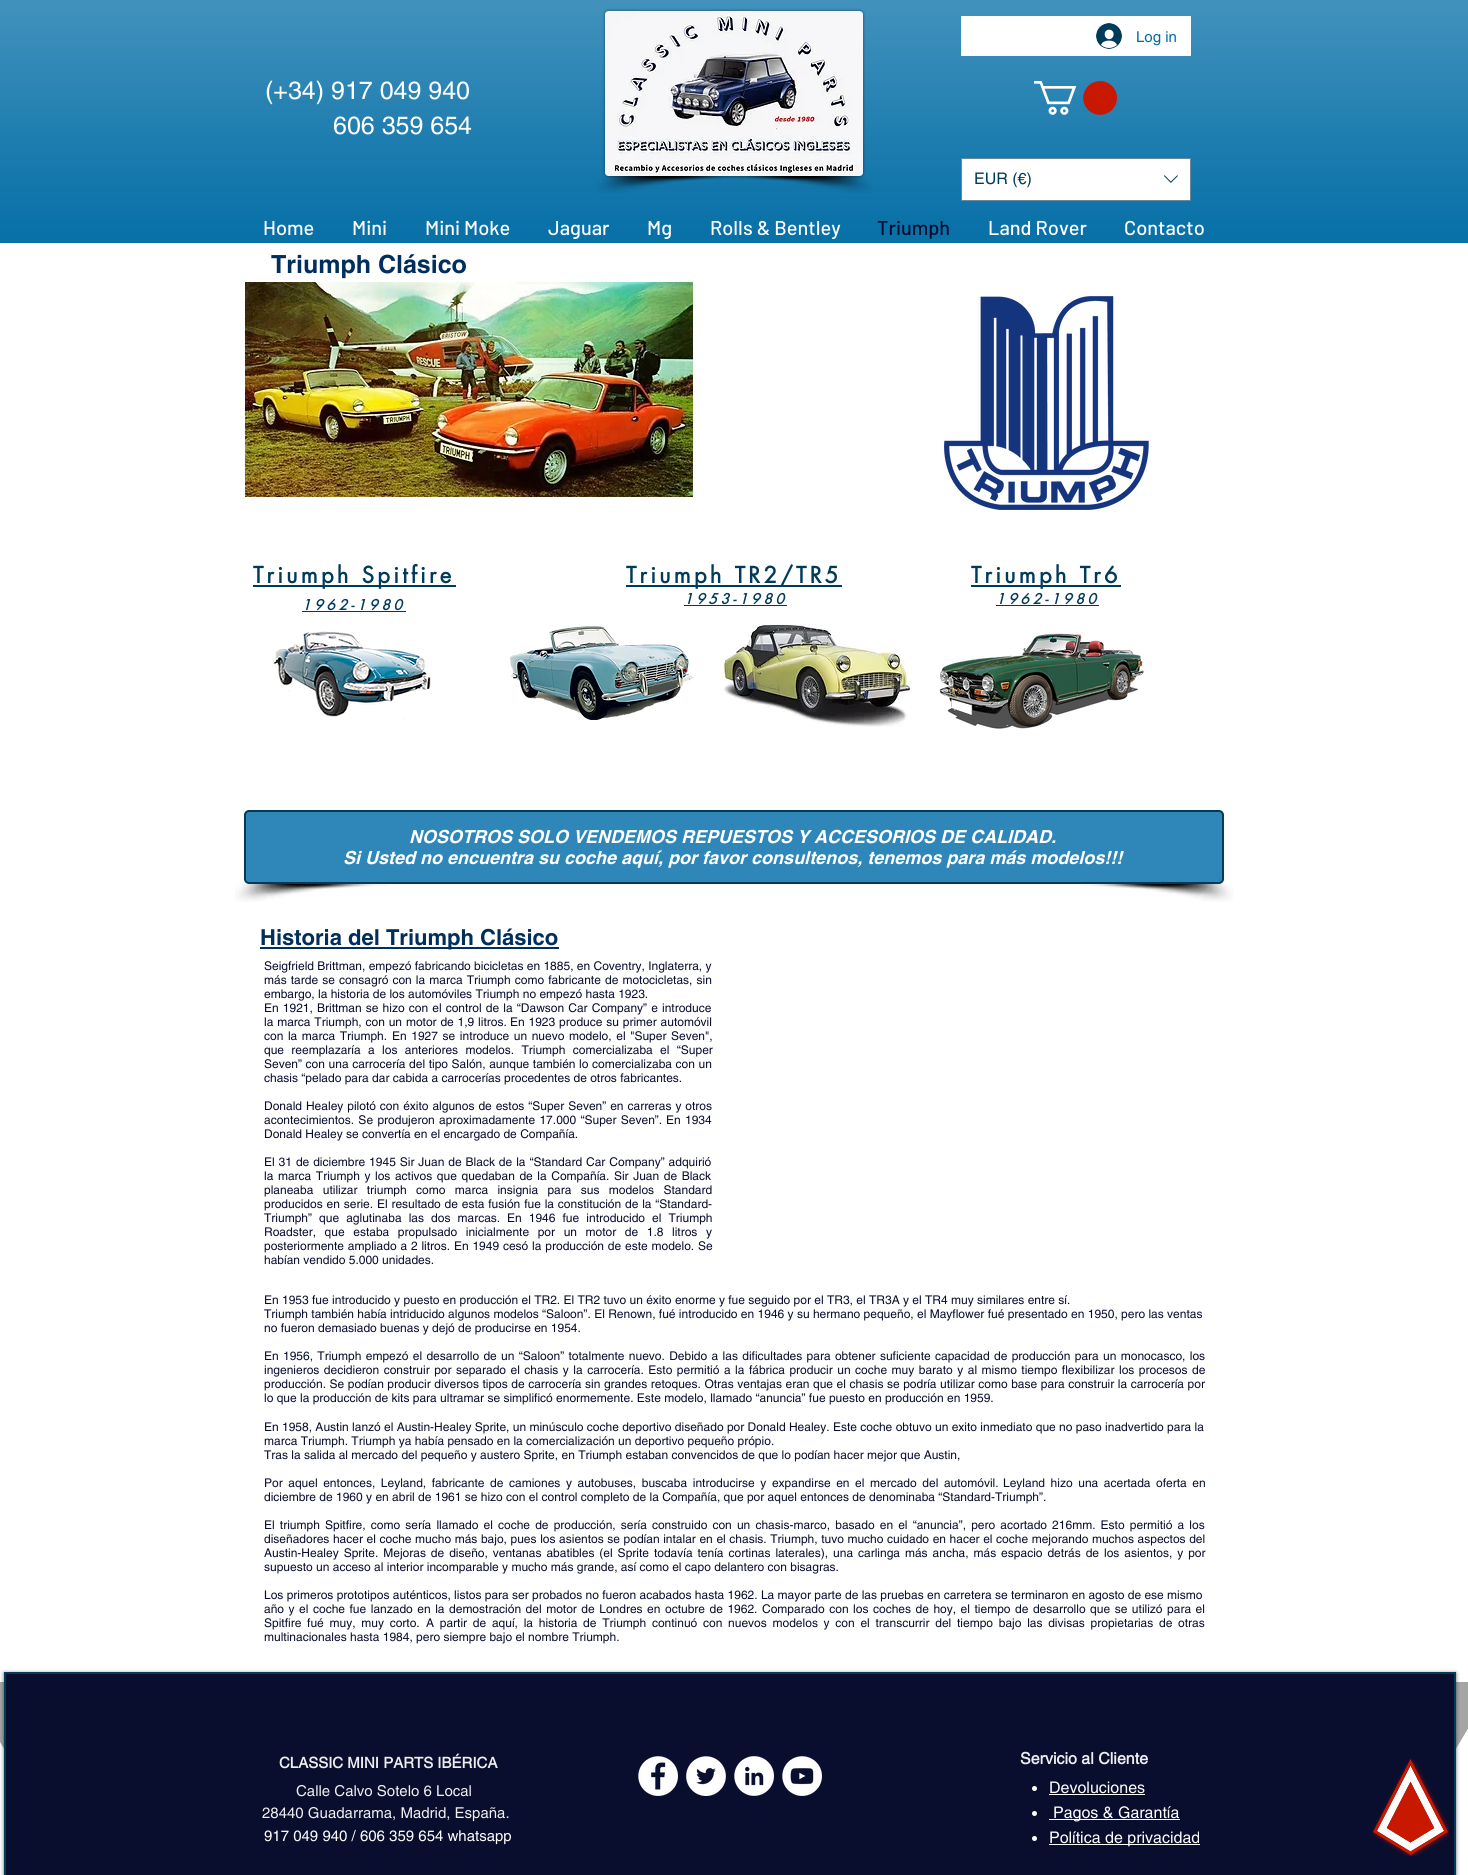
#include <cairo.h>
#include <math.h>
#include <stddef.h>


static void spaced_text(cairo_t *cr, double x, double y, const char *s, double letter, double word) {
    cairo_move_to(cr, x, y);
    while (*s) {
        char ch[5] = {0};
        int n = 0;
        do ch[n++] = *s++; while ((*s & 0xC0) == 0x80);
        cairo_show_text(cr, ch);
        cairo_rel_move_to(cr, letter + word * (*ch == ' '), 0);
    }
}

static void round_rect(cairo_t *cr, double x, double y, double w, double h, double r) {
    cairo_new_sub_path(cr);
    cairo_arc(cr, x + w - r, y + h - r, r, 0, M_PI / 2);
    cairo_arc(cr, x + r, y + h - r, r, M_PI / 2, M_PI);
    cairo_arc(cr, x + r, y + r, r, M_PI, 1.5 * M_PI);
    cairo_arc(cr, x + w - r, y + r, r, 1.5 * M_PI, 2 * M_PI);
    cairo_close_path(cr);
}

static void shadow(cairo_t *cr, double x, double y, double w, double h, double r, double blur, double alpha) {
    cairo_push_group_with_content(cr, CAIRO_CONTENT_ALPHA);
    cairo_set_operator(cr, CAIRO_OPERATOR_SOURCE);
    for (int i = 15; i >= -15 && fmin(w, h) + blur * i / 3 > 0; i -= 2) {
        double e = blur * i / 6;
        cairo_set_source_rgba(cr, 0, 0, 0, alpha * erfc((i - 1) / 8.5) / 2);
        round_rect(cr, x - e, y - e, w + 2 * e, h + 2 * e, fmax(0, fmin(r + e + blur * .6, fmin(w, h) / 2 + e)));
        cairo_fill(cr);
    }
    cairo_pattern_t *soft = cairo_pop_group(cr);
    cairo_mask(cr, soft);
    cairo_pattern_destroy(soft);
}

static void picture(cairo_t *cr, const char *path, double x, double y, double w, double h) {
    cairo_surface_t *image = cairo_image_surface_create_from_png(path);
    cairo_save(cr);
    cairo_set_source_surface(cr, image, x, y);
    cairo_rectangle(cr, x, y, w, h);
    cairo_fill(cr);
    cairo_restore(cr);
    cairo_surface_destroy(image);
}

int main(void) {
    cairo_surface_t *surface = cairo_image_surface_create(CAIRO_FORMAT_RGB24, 1468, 1875);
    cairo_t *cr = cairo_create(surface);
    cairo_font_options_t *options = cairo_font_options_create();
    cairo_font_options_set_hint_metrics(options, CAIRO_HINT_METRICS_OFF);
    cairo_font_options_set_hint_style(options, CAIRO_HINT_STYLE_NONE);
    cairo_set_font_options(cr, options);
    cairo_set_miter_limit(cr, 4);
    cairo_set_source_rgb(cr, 1, 1, 1);
    cairo_paint(cr);
    cairo_set_source_rgb(cr, 0, 0.424, 0.647);
    cairo_rectangle(cr, 0, 0, 1468, 243);
    cairo_fill(cr);
    picture(cr, "img1.png", 0, 0, 1468, 243);
    cairo_set_source_rgb(cr, 0, 0, 0);
    shadow(cr, 605, 11, 258, 165, 3, 1.5, 0.5);
    cairo_set_source_rgb(cr, 0, 0.604, 0.922);
    round_rect(cr, 605, 11, 258, 165, 3);
    cairo_fill(cr);
    picture(cr, "img2.png", 605, 11, 258, 165);
    picture(cr, "img3.png", 596, 176, 147, 18);
    picture(cr, "img4.png", 726, 176, 146, 18);
    cairo_set_source_rgb(cr, 1, 1, 1);
    cairo_rectangle(cr, 961, 16, 230, 40);
    cairo_fill(cr);
    picture(cr, "img5.png", 1096, 23, 26, 26);
    cairo_select_font_face(cr, "helvetica", CAIRO_FONT_SLANT_NORMAL, CAIRO_FONT_WEIGHT_NORMAL);
    cairo_set_font_size(cr, 15);
    cairo_set_source_rgb(cr, 0, 0.424, 0.647);
    cairo_move_to(cr, 1136, 42);
    cairo_show_text(cr, "Log in");
    cairo_set_font_size(cr, 25);
    cairo_set_source_rgb(cr, 1, 1, 1);
    cairo_move_to(cr, 265, 99);
    cairo_show_text(cr, "(+34) 917 049 940");
    cairo_move_to(cr, 333, 134);
    cairo_show_text(cr, "606 359 654");
    picture(cr, "img6.png", 1034, 81, 83, 34);
    cairo_rectangle(cr, 961.5, 158.5, 229, 42);
    cairo_fill_preserve(cr);
    cairo_set_source_rgb(cr, 0.4, 0.537, 0.612);
    cairo_set_line_width(cr, 1);
    cairo_stroke(cr);
    cairo_set_font_size(cr, 16);
    cairo_set_source_rgb(cr, 0, 0.231, 0.353);
    cairo_move_to(cr, 974, 184);
    cairo_show_text(cr, "EUR (€)");
    picture(cr, "img7.png", 1163, 175, 15, 8);
    cairo_select_font_face(cr, "Barlow Medium", CAIRO_FONT_SLANT_NORMAL, CAIRO_FONT_WEIGHT_NORMAL);
    cairo_set_font_size(cr, 20);
    cairo_set_source_rgb(cr, 1, 1, 1);
    cairo_move_to(cr, 263, 235);
    cairo_show_text(cr, "Home");
    cairo_move_to(cr, 352, 235);
    cairo_show_text(cr, "Mini");
    cairo_move_to(cr, 425, 235);
    cairo_show_text(cr, "Mini Moke");
    cairo_move_to(cr, 548, 235);
    cairo_show_text(cr, "Jaguar");
    cairo_move_to(cr, 647, 235);
    cairo_show_text(cr, "Mg");
    cairo_move_to(cr, 710, 235);
    cairo_show_text(cr, "Rolls & Bentley");
    cairo_set_source_rgb(cr, 0.039, 0.051, 0.18);
    cairo_move_to(cr, 877, 235);
    cairo_show_text(cr, "Triumph");
    cairo_set_source_rgb(cr, 1, 1, 1);
    cairo_move_to(cr, 988, 235);
    cairo_show_text(cr, "Land Rover");
    cairo_move_to(cr, 1124, 235);
    cairo_show_text(cr, "Contacto");
    cairo_select_font_face(cr, "helvetica", CAIRO_FONT_SLANT_NORMAL, CAIRO_FONT_WEIGHT_BOLD);
    cairo_set_font_size(cr, 25);
    cairo_set_source_rgb(cr, 0, 0.18, 0.365);
    cairo_move_to(cr, 271, 273);
    cairo_show_text(cr, "Triumph Clásico");
    picture(cr, "img8.png", 245, 282, 448, 215);
    picture(cr, "img9.png", 944, 296, 205, 214);
    cairo_set_source_rgb(cr, 0, 0.231, 0.353);
    cairo_rectangle(cr, 253, 585, 203, 2);
    cairo_fill(cr);
    cairo_select_font_face(cr, "futura", CAIRO_FONT_SLANT_NORMAL, CAIRO_FONT_WEIGHT_BOLD);
    cairo_set_font_size(cr, 22);
    spaced_text(cr, 253, 583, "Triumph Spitfire", 3.25, 0);
    cairo_rectangle(cr, 626, 585, 216, 2);
    cairo_fill(cr);
    spaced_text(cr, 626, 583, "Triumph TR2/TR5", 3.25, 0);
    cairo_rectangle(cr, 971, 585, 150, 2);
    cairo_fill(cr);
    spaced_text(cr, 971, 583, "Triumph Tr6", 3.25, 0);
    cairo_select_font_face(cr, "futura", CAIRO_FONT_SLANT_ITALIC, CAIRO_FONT_WEIGHT_BOLD);
    cairo_set_font_size(cr, 14);
    spaced_text(cr, 302, 610, "1962-1980", 3.5, 0);
    cairo_rectangle(cr, 302, 611, 104, 1);
    cairo_fill(cr);
    spaced_text(cr, 684, 604, "1953-1980", 3.5, 0);
    cairo_rectangle(cr, 684, 605, 103, 1);
    cairo_fill(cr);
    spaced_text(cr, 996, 604, "1962-1980", 3.5, 0);
    cairo_rectangle(cr, 996, 605, 103, 1);
    cairo_fill(cr);
    picture(cr, "img10.png", 273, 631, 158, 89);
    picture(cr, "img11.png", 510, 626, 183, 94);
    picture(cr, "img12.png", 720, 624, 192, 103);
    picture(cr, "img13.png", 939, 633, 206, 96);
    cairo_set_source_rgb(cr, 0.18, 0.529, 0.722);
    round_rect(cr, 245, 811, 978, 72, 4);
    cairo_fill_preserve(cr);
    cairo_set_source_rgb(cr, 0, 0.231, 0.353);
    cairo_set_line_width(cr, 2);
    cairo_stroke(cr);
    cairo_select_font_face(cr, "helvetica", CAIRO_FONT_SLANT_ITALIC, CAIRO_FONT_WEIGHT_BOLD);
    cairo_set_font_size(cr, 18);
    cairo_set_source_rgb(cr, 1, 1, 1);
    cairo_move_to(cr, 409, 843);
    cairo_show_text(cr, "NOSOTROS SOLO VENDEMOS REPUESTOS Y ACCESORIOS DE CALIDAD.");
    cairo_move_to(cr, 343, 864);
    cairo_show_text(cr, "Si Usted no encuentra su coche aquí, por favor consultenos, tenemos para más modelos!!!");
    picture(cr, "img14.png", 235, 884, 154, 18);
    picture(cr, "img15.png", 1079, 884, 154, 18);
    cairo_set_source_rgb(cr, 0, 0.18, 0.365);
    cairo_rectangle(cr, 260, 947, 299, 2);
    cairo_fill(cr);
    cairo_select_font_face(cr, "helvetica", CAIRO_FONT_SLANT_NORMAL, CAIRO_FONT_WEIGHT_BOLD);
    cairo_set_font_size(cr, 22);
    cairo_move_to(cr, 260, 945);
    cairo_show_text(cr, "Historia del Triumph Clásico");
    cairo_select_font_face(cr, "helvetica", CAIRO_FONT_SLANT_NORMAL, CAIRO_FONT_WEIGHT_NORMAL);
    cairo_set_font_size(cr, 12);
    cairo_set_source_rgb(cr, 0.039, 0.051, 0.18);
    cairo_move_to(cr, 264, 970);
    cairo_show_text(cr, "Seigfrield Brittman, empezó fabricando bicicletas en 1885, en Coventry, Inglaterra, y");
    spaced_text(cr, 264, 984, "más tarde se consagró con la marca Triumph como fabricante de motocicletas, sin", 0, 0.75);
    cairo_move_to(cr, 264, 998);
    cairo_show_text(cr, "embargo, la historia de los automóviles Triumph no empezó hasta 1923.");
    spaced_text(cr, 264, 1012, "En 1921, Brittman se hizo con el control de la “Dawson Car Company” e introduce", 0, 0.8);
    spaced_text(cr, 264, 1026, "la marca Triumph, con un motor de 1,9 litros.", 0, 0.5);
    spaced_text(cr, 510, 1026, "En 1923 produce su primer automóvil", 0, 0.5);
    spaced_text(cr, 264, 1040, "con la marca Triumph.", 0, 1.25);
    spaced_text(cr, 392, 1040, "En 1927 se introduce un nuevo modelo, el \"Super Seven\",", 0, 1.25);
    spaced_text(cr, 264, 1054, "que reemplazaría a los anteriores modelos. Triumph comercializaba el “Super", 0, 4);
    spaced_text(cr, 264, 1068, "Seven” con una carrocería del tipo Salón, aunque también lo comercializaba con un", 0, 0.25);
    cairo_move_to(cr, 264, 1082);
    cairo_show_text(cr, "chasis “pelado para dar cabida a carrocerías procedentes de otros fabricantes.");
    spaced_text(cr, 264, 1110, "Donald Healey pilotó con éxito algunos de estos “Super Seven” en carreras y otros", 0, 0.6);
    spaced_text(cr, 264, 1124, "acontecimientos. Se produjeron aproximadamente 17.000 “Super Seven”.", 0, 1);
    spaced_text(cr, 666, 1124, "En 1934", 0, 1);
    cairo_move_to(cr, 264, 1138);
    cairo_show_text(cr, "Donald Healey se convertía en el encargado de Compañía.");
    spaced_text(cr, 264, 1166, "El 31 de diciembre 1945 Sir Juan de Black de la “Standard Car Company” adquirió", 0, 0.6);
    spaced_text(cr, 264, 1180, "la marca Triumph y los activos que quedaban de la Compañía. Sir Juan de Black", 0, 1.25);
    spaced_text(cr, 264, 1194, "planeaba utilizar triumph como marca insignia para sus modelos Standard", 0, 6);
    spaced_text(cr, 264, 1208, "producidos en serie. El resultado de esta fusión fue la constitución de la “Standard-", 0, 0.5);
    spaced_text(cr, 264, 1222, "Triumph” que aglutinaba las dos marcas.", 0, 3.75);
    spaced_text(cr, 507, 1222, "En 1946 fue introducido el Triumph", 0, 3.75);
    spaced_text(cr, 264, 1236, "Roadster, que estaba propulsado inicialmente por un motor de 1.8 litros y", 0, 5.25);
    spaced_text(cr, 264, 1250, "posteriormente ampliado a 2 litros. En 1949 cesó la producción de este modelo. Se", 0, 0.5);
    cairo_move_to(cr, 264, 1264);
    cairo_show_text(cr, "habían vendido 5.000 unidades.");
    cairo_move_to(cr, 264, 1304);
    cairo_show_text(cr, "En 1953 fue introducido y puesto en producción el TR2. El TR2 tuvo un éxito enorme y fue seguido por el TR3, el TR3A y el TR4 muy similares entre sí.");
    cairo_move_to(cr, 264, 1318);
    cairo_show_text(cr, "Triumph también había intriducido algunos modelos “Saloon”. El Renown, fué introducido en 1946 y su hermano pequeño, el Mayflower fué presentado en 1950, pero las ventas");
    cairo_move_to(cr, 264, 1332);
    cairo_show_text(cr, "no fueron demasiado buenas y dejó de producirse en 1954.");
    spaced_text(cr, 264, 1360, "En 1956, Triumph empezó el desarrollo de un “Saloon” totalmente nuevo. Debido a las dificultades para obtener suficiente capacidad de producción para un monocasco, los", 0, 1);
    spaced_text(cr, 264, 1374, "ingenieros decidieron construir por separado el chasis y la carrocería. Esto permitió a la fábrica producir un coche muy barato y al mismo tiempo flexibilizar los procesos de", 0, 1.15);
    spaced_text(cr, 264, 1388, "producción. Se podían producir diversos tipos de carrocería sin grandes retoques. Otras ventajas eran que el chasis se podría utilizar como base para construir la carrocería por", 0, 0.2);
    cairo_move_to(cr, 264, 1402);
    cairo_show_text(cr, "lo que la producción de kits para ultramar se simplificó enormemente. Este modelo, llamado “anuncia” fue puesto en producción en 1959.");
    cairo_move_to(cr, 264, 1431);
    cairo_show_text(cr, "En 1958, Austin lanzó el Austin-Healey Sprite, un minúsculo coche deportivo diseñado por Donald Healey. Este coche obtuvo un exito inmediato que no paso inadvertido para la");
    cairo_move_to(cr, 264, 1445);
    cairo_show_text(cr, "marca Triumph. Triumph ya había pensado en la comercialización un deportivo pequeño própio.");
    cairo_move_to(cr, 264, 1459);
    cairo_show_text(cr, "Tras la salida al mercado del pequeño y austero Sprite, en Triumph estaban convencidos de que lo podían hacer mejor que Austin,");
    spaced_text(cr, 264, 1487, "Por aquel entonces, Leyland, fabricante de camiones y autobuses, buscaba introducirse y expandirse en el mercado del automóvil.", 0, 2.25);
    spaced_text(cr, 1003, 1487, "Leyland hizo una acertada oferta en", 0, 2.25);
    cairo_move_to(cr, 264, 1501);
    cairo_show_text(cr, "diciembre de 1960 y en abril de 1961 se hizo con el control completo de la Compañía, que por aquel entonces de denominaba “Standard-Triumph”.");
    spaced_text(cr, 264, 1529, "El triumph Spitfire, como sería llamado el coche de producción, sería construido con un chasis-marco, basado en el “anuncia”, pero acortado 216mm. Esto permitió a los", 0, 1.8);
    spaced_text(cr, 264, 1543, "diseñadores hacer el coche mucho más bajo, pues los asientos se podían intalar en el chasis. Triumph, tuvo mucho cuidado en hacer el coche mejorando muchos aspectos del", 0, 0.25);
    spaced_text(cr, 264, 1557, "Austin-Healey Sprite. Mejoras de diseño, ventanas abatibles (el Sprite todavía tenía cortinas laterales), una carlinga más ancha, más espacio detrás de los asientos, y por", 0, 1.6);
    cairo_move_to(cr, 264, 1571);
    cairo_show_text(cr, "supuesto un acceso al interior incomparable y mucho más grande, así como el capo delantero con bisagras.");
    cairo_move_to(cr, 264, 1599);
    cairo_show_text(cr, "Los primeros prototipos auténticos, listos para ser probados no fueron acabados hasta 1962. La mayor parte de las pruebas en carretera se terminaron en agosto de ese mismo");
    spaced_text(cr, 264, 1613, "año y el coche fue lanzado en la demostración del motor de Londres en octubre de 1962. Comparado con los coches de hoy, el tiempo de desarrollo que se utilizó para el", 0, 1.2);
    spaced_text(cr, 264, 1627, "Spitfire fué muy, muy corto.", 0, 2.4);
    spaced_text(cr, 426, 1627, "A partir de aquí, la historia de Triumph continuó con nuevos modelos y con el transcurrir del tiempo bajo las divisas propietarias de otras", 0, 2.4);
    cairo_move_to(cr, 264, 1641);
    cairo_show_text(cr, "multinacionales hasta 1984, pero siempre bajo el nombre Triumph.");
    cairo_set_source_rgb(cr, 0.647, 0.647, 0.647);
    cairo_new_path(cr);
    cairo_move_to(cr, -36, 1682);
    cairo_line_to(cr, 24, 1682);
    cairo_line_to(cr, 24, 1782);
    cairo_close_path(cr);
    cairo_fill(cr);
    cairo_new_path(cr);
    cairo_move_to(cr, 1436, 1682);
    cairo_line_to(cr, 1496, 1682);
    cairo_line_to(cr, 1436, 1782);
    cairo_close_path(cr);
    cairo_fill(cr);
    cairo_set_source_rgb(cr, 0, 0, 0);
    shadow(cr, 4, 1673, 1452, 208, 0, 2, 0.6);
    cairo_set_source_rgb(cr, 0.039, 0.051, 0.18);
    cairo_rectangle(cr, 5, 1673, 1450, 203);
    cairo_fill_preserve(cr);
    cairo_set_source_rgb(cr, 0, 0.231, 0.353);
    cairo_stroke(cr);
    cairo_select_font_face(cr, "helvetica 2", CAIRO_FONT_SLANT_NORMAL, CAIRO_FONT_WEIGHT_BOLD);
    cairo_set_font_size(cr, 15);
    cairo_set_source_rgb(cr, 0.933, 0.933, 0.933);
    cairo_move_to(cr, 279, 1768);
    cairo_show_text(cr, "CLASSIC MINI PARTS IBÉRICA");
    cairo_select_font_face(cr, "helvetica", CAIRO_FONT_SLANT_NORMAL, CAIRO_FONT_WEIGHT_NORMAL);
    cairo_move_to(cr, 296, 1796);
    cairo_show_text(cr, "Calle Calvo Sotelo 6 Local");
    cairo_move_to(cr, 262, 1818);
    cairo_show_text(cr, "28440 Guadarrama, Madrid, España.");
    cairo_set_source_rgb(cr, 1, 1, 1);
    cairo_move_to(cr, 264, 1841);
    cairo_show_text(cr, "917 049 940 / 606 359 654 whatsapp");
    picture(cr, "img16.png", 638, 1756, 40, 40);
    picture(cr, "img17.png", 686, 1756, 40, 40);
    picture(cr, "img18.png", 734, 1756, 40, 40);
    picture(cr, "img19.png", 782, 1756, 40, 40);
    cairo_select_font_face(cr, "helvetica 2", CAIRO_FONT_SLANT_NORMAL, CAIRO_FONT_WEIGHT_BOLD);
    cairo_set_font_size(cr, 16);
    cairo_set_source_rgb(cr, 0.933, 0.933, 0.933);
    cairo_move_to(cr, 1020, 1764);
    cairo_show_text(cr, "Servicio al Cliente");
    cairo_set_source_rgb(cr, 1, 1, 0.996);
    cairo_new_path(cr);
    cairo_arc(cr, 1034.5, 1788.5, 2.5, 0, 2 * M_PI);
    cairo_fill(cr);
    cairo_select_font_face(cr, "helvetica", CAIRO_FONT_SLANT_NORMAL, CAIRO_FONT_WEIGHT_NORMAL);
    cairo_set_source_rgb(cr, 1, 1, 1);
    cairo_move_to(cr, 1049, 1793);
    cairo_show_text(cr, "Devoluciones");
    cairo_set_source_rgb(cr, 1, 1, 0.996);
    cairo_rectangle(cr, 1049, 1794, 96, 1);
    cairo_fill(cr);
    cairo_arc(cr, 1034.5, 1813.5, 2.5, 0, 2 * M_PI);
    cairo_fill(cr);
    cairo_rectangle(cr, 1049, 1819, 131, 1);
    cairo_fill(cr);
    cairo_set_source_rgb(cr, 1, 1, 1);
    cairo_move_to(cr, 1053, 1818);
    cairo_show_text(cr, "Pagos & Garantía");
    cairo_set_source_rgb(cr, 1, 1, 0.996);
    cairo_new_path(cr);
    cairo_arc(cr, 1034.5, 1838.5, 2.5, 0, 2 * M_PI);
    cairo_fill(cr);
    cairo_rectangle(cr, 1049, 1844, 151, 1);
    cairo_fill(cr);
    cairo_set_source_rgb(cr, 1, 1, 1);
    cairo_move_to(cr, 1049, 1843);
    cairo_show_text(cr, "Política de privacidad");
    picture(cr, "img20.png", 1372, 1758, 77, 98);
    cairo_surface_write_to_png(surface, "page.png");
    cairo_font_options_destroy(options);
    cairo_destroy(cr);
    cairo_surface_destroy(surface);
    return 0;
}
